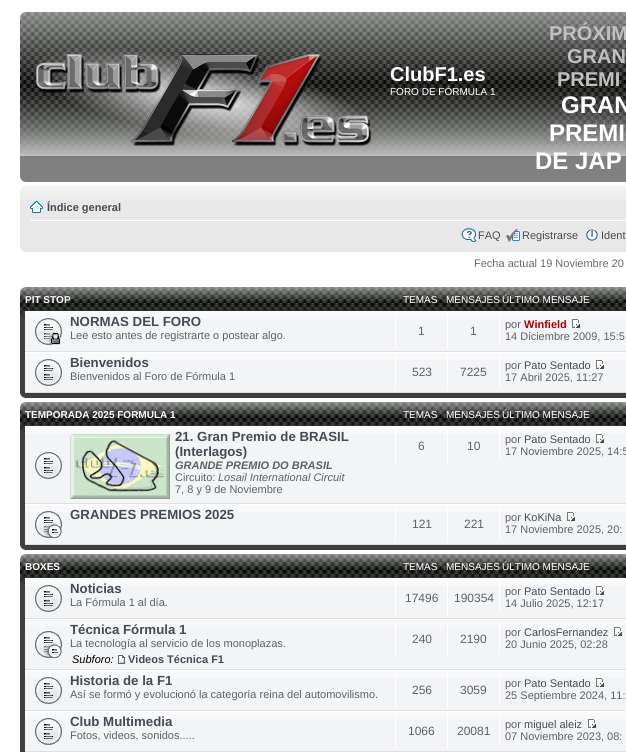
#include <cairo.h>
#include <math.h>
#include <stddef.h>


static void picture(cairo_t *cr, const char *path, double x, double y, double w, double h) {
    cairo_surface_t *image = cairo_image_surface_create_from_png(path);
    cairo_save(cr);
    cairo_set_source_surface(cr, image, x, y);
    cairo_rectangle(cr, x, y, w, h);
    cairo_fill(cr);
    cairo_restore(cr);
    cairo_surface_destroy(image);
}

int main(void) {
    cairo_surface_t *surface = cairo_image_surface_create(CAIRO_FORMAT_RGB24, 626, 752);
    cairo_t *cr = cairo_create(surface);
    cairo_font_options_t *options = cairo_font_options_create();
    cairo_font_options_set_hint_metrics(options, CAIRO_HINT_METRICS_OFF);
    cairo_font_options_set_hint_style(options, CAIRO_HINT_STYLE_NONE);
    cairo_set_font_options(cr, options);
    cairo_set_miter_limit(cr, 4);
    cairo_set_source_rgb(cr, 1, 1, 1);
    cairo_paint(cr);
    cairo_set_source_rgb(cr, 0.502, 0.502, 0.502);
    cairo_rectangle(cr, 20, 156, 606, 26);
    cairo_fill(cr);
    picture(cr, "img1.png", 20, 12, 606, 144);
    picture(cr, "img2.png", 20, 12, 5, 8);
    picture(cr, "img3.png", 33, 49, 339, 98);
    cairo_select_font_face(cr, "Liberation Sans", CAIRO_FONT_SLANT_NORMAL, CAIRO_FONT_WEIGHT_BOLD);
    cairo_set_font_size(cr, 20);
    cairo_set_source_rgb(cr, 1, 1, 1);
    cairo_move_to(cr, 390, 81);
    cairo_show_text(cr, "ClubF1.es");
    cairo_select_font_face(cr, "Liberation Sans", CAIRO_FONT_SLANT_NORMAL, CAIRO_FONT_WEIGHT_NORMAL);
    cairo_set_font_size(cr, 10);
    cairo_move_to(cr, 390, 95);
    cairo_show_text(cr, "FORO DE FÓRMULA 1");
    cairo_select_font_face(cr, "Liberation Sans", CAIRO_FONT_SLANT_NORMAL, CAIRO_FONT_WEIGHT_BOLD);
    cairo_set_font_size(cr, 20);
    cairo_set_source_rgb(cr, 0.753, 0.753, 0.753);
    cairo_move_to(cr, 549, 40);
    cairo_show_text(cr, "PRÓXIM");
    cairo_move_to(cr, 567, 63);
    cairo_show_text(cr, "GRAN");
    cairo_move_to(cr, 557, 86);
    cairo_show_text(cr, "PREMI");
    cairo_set_font_size(cr, 24);
    cairo_set_source_rgb(cr, 1, 1, 1);
    cairo_move_to(cr, 561, 113);
    cairo_show_text(cr, "GRAN");
    cairo_move_to(cr, 549, 141);
    cairo_show_text(cr, "PREMI");
    cairo_move_to(cr, 535, 169);
    cairo_show_text(cr, "DE JAP");
    picture(cr, "img4.png", 20, 177, 5, 5);
    cairo_set_source_rgb(cr, 0.91, 0.91, 0.91);
    cairo_rectangle(cr, 20, 186, 606, 66);
    cairo_fill(cr);
    picture(cr, "img5.png", 20, 186, 606, 14);
    picture(cr, "img6.png", 20, 186, 4, 4);
    cairo_set_source_rgb(cr, 1, 1, 1);
    cairo_rectangle(cr, 30, 220, 596, 1);
    cairo_fill(cr);
    picture(cr, "img7.png", 30, 201, 13, 12);
    cairo_set_font_size(cr, 11);
    cairo_set_source_rgb(cr, 0.271, 0.294, 0.329);
    cairo_move_to(cr, 47, 211);
    cairo_show_text(cr, "Índice general");
    picture(cr, "img8.png", 461, 228, 16, 14);
    cairo_select_font_face(cr, "Liberation Sans", CAIRO_FONT_SLANT_NORMAL, CAIRO_FONT_WEIGHT_NORMAL);
    cairo_move_to(cr, 478, 239);
    cairo_show_text(cr, "FAQ");
    picture(cr, "img9.png", 506, 229, 14, 13);
    cairo_move_to(cr, 522, 239);
    cairo_show_text(cr, "Registrarse");
    picture(cr, "img10.png", 586, 229, 12, 12);
    cairo_move_to(cr, 601, 239);
    cairo_show_text(cr, "Ident");
    picture(cr, "img11.png", 20, 247, 5, 5);
    cairo_set_source_rgb(cr, 0.408, 0.412, 0.427);
    cairo_move_to(cr, 474, 267);
    cairo_show_text(cr, "Fecha actual 19 Noviembre 20");
    cairo_set_source_rgb(cr, 0.251, 0.251, 0.251);
    cairo_rectangle(cr, 20, 318, 606, 80);
    cairo_fill(cr);
    picture(cr, "img12.png", 20, 287, 606, 31);
    picture(cr, "img13.png", 20, 287, 5, 8);
    cairo_select_font_face(cr, "Liberation Sans", CAIRO_FONT_SLANT_NORMAL, CAIRO_FONT_WEIGHT_BOLD);
    cairo_set_font_size(cr, 10);
    cairo_set_source_rgb(cr, 1, 1, 1);
    cairo_move_to(cr, 25, 303);
    cairo_show_text(cr, "PIT STOP");
    cairo_select_font_face(cr, "Liberation Sans", CAIRO_FONT_SLANT_NORMAL, CAIRO_FONT_WEIGHT_NORMAL);
    cairo_move_to(cr, 403, 303);
    cairo_show_text(cr, "TEMAS");
    cairo_move_to(cr, 446, 303);
    cairo_show_text(cr, "MENSAJES");
    cairo_move_to(cr, 502, 303);
    cairo_show_text(cr, "ÚLTIMO MENSAJE");
    cairo_set_source_rgb(cr, 0.953, 0.957, 0.961);
    cairo_rectangle(cr, 25, 312, 601, 39);
    cairo_fill(cr);
    picture(cr, "img14.png", 25, 312, 601, 7);
    cairo_set_source_rgb(cr, 1, 1, 1);
    cairo_rectangle(cr, 25, 311, 601, 1);
    cairo_fill(cr);
    cairo_set_source_rgb(cr, 0.878, 0.878, 0.878);
    cairo_rectangle(cr, 25, 351, 601, 1);
    cairo_fill(cr);
    picture(cr, "img15.png", 35, 318, 27, 27);
    cairo_select_font_face(cr, "Liberation Sans", CAIRO_FONT_SLANT_NORMAL, CAIRO_FONT_WEIGHT_BOLD);
    cairo_set_font_size(cr, 13.25);
    cairo_set_source_rgb(cr, 0.271, 0.294, 0.329);
    cairo_move_to(cr, 70, 326);
    cairo_show_text(cr, "NORMAS DEL FORO");
    cairo_select_font_face(cr, "Liberation Sans", CAIRO_FONT_SLANT_NORMAL, CAIRO_FONT_WEIGHT_NORMAL);
    cairo_set_font_size(cr, 11);
    cairo_set_source_rgb(cr, 0.373, 0.376, 0.392);
    cairo_move_to(cr, 70, 339);
    cairo_show_text(cr, "Lee esto antes de registrarte o postear algo.");
    cairo_set_source_rgb(cr, 1, 1, 1);
    cairo_rectangle(cr, 395, 314, 1, 35);
    cairo_fill(cr);
    cairo_set_font_size(cr, 12);
    cairo_set_source_rgb(cr, 0.373, 0.376, 0.392);
    cairo_move_to(cr, 418, 335);
    cairo_show_text(cr, "1");
    cairo_set_source_rgb(cr, 1, 1, 1);
    cairo_rectangle(cr, 447, 314, 1, 35);
    cairo_fill(cr);
    cairo_set_source_rgb(cr, 0.373, 0.376, 0.392);
    cairo_move_to(cr, 470, 335);
    cairo_show_text(cr, "1");
    cairo_set_source_rgb(cr, 1, 1, 1);
    cairo_rectangle(cr, 499, 314, 1, 32);
    cairo_fill(cr);
    cairo_set_font_size(cr, 11);
    cairo_set_source_rgb(cr, 0.373, 0.376, 0.392);
    cairo_move_to(cr, 505, 328);
    cairo_show_text(cr, "por");
    cairo_select_font_face(cr, "Liberation Sans", CAIRO_FONT_SLANT_NORMAL, CAIRO_FONT_WEIGHT_BOLD);
    cairo_set_source_rgb(cr, 0.667, 0, 0);
    cairo_move_to(cr, 524, 328);
    cairo_show_text(cr, "Winfield");
    picture(cr, "img16.png", 572, 319, 8, 9);
    cairo_select_font_face(cr, "Liberation Sans", CAIRO_FONT_SLANT_NORMAL, CAIRO_FONT_WEIGHT_NORMAL);
    cairo_set_source_rgb(cr, 0.373, 0.376, 0.392);
    cairo_move_to(cr, 505, 340);
    cairo_show_text(cr, "14 Diciembre 2009, 15:5");
    cairo_set_source_rgb(cr, 0.953, 0.957, 0.961);
    cairo_rectangle(cr, 25, 353, 601, 39);
    cairo_fill(cr);
    picture(cr, "img14.png", 25, 353, 601, 7);
    cairo_set_source_rgb(cr, 1, 1, 1);
    cairo_rectangle(cr, 25, 352, 601, 1);
    cairo_fill(cr);
    cairo_set_source_rgb(cr, 0.878, 0.878, 0.878);
    cairo_rectangle(cr, 25, 392, 601, 1);
    cairo_fill(cr);
    picture(cr, "img17.png", 35, 359, 27, 27);
    cairo_select_font_face(cr, "Liberation Sans", CAIRO_FONT_SLANT_NORMAL, CAIRO_FONT_WEIGHT_BOLD);
    cairo_set_font_size(cr, 13.25);
    cairo_set_source_rgb(cr, 0.271, 0.294, 0.329);
    cairo_move_to(cr, 70, 367);
    cairo_show_text(cr, "Bienvenidos");
    cairo_select_font_face(cr, "Liberation Sans", CAIRO_FONT_SLANT_NORMAL, CAIRO_FONT_WEIGHT_NORMAL);
    cairo_set_font_size(cr, 11);
    cairo_set_source_rgb(cr, 0.373, 0.376, 0.392);
    cairo_move_to(cr, 70, 380);
    cairo_show_text(cr, "Bienvenidos al Foro de Fórmula 1");
    cairo_set_source_rgb(cr, 1, 1, 1);
    cairo_rectangle(cr, 395, 355, 1, 35);
    cairo_fill(cr);
    cairo_set_font_size(cr, 12);
    cairo_set_source_rgb(cr, 0.373, 0.376, 0.392);
    cairo_move_to(cr, 412, 376);
    cairo_show_text(cr, "523");
    cairo_set_source_rgb(cr, 1, 1, 1);
    cairo_rectangle(cr, 447, 355, 1, 35);
    cairo_fill(cr);
    cairo_set_source_rgb(cr, 0.373, 0.376, 0.392);
    cairo_move_to(cr, 460, 376);
    cairo_show_text(cr, "7225");
    cairo_set_source_rgb(cr, 1, 1, 1);
    cairo_rectangle(cr, 499, 355, 1, 32);
    cairo_fill(cr);
    cairo_set_font_size(cr, 11);
    cairo_set_source_rgb(cr, 0.373, 0.376, 0.392);
    cairo_move_to(cr, 505, 369);
    cairo_show_text(cr, "por");
    cairo_set_source_rgb(cr, 0.271, 0.294, 0.329);
    cairo_move_to(cr, 524, 369);
    cairo_show_text(cr, "Pato Sentado");
    picture(cr, "img16.png", 596, 360, 8, 9);
    cairo_set_source_rgb(cr, 0.373, 0.376, 0.392);
    cairo_move_to(cr, 505, 381);
    cairo_show_text(cr, "17 Abril 2025, 11:27");
    picture(cr, "img18.png", 20, 393, 5, 5);
    cairo_set_source_rgb(cr, 0.251, 0.251, 0.251);
    cairo_rectangle(cr, 20, 433, 606, 117);
    cairo_fill(cr);
    picture(cr, "img12.png", 20, 402, 606, 31);
    picture(cr, "img13.png", 20, 402, 5, 8);
    cairo_select_font_face(cr, "Liberation Sans", CAIRO_FONT_SLANT_NORMAL, CAIRO_FONT_WEIGHT_BOLD);
    cairo_set_font_size(cr, 10);
    cairo_set_source_rgb(cr, 1, 1, 1);
    cairo_move_to(cr, 25, 418);
    cairo_show_text(cr, "TEMPORADA 2025 FORMULA 1");
    cairo_select_font_face(cr, "Liberation Sans", CAIRO_FONT_SLANT_NORMAL, CAIRO_FONT_WEIGHT_NORMAL);
    cairo_move_to(cr, 403, 418);
    cairo_show_text(cr, "TEMAS");
    cairo_move_to(cr, 446, 418);
    cairo_show_text(cr, "MENSAJES");
    cairo_move_to(cr, 502, 418);
    cairo_show_text(cr, "ÚLTIMO MENSAJE");
    cairo_set_source_rgb(cr, 0.953, 0.957, 0.961);
    cairo_rectangle(cr, 25, 427, 601, 76);
    cairo_fill(cr);
    picture(cr, "img14.png", 25, 427, 601, 7);
    cairo_set_source_rgb(cr, 1, 1, 1);
    cairo_rectangle(cr, 25, 426, 601, 1);
    cairo_fill(cr);
    cairo_set_source_rgb(cr, 0.878, 0.878, 0.878);
    cairo_rectangle(cr, 25, 503, 601, 1);
    cairo_fill(cr);
    picture(cr, "img19.png", 35, 452, 27, 27);
    picture(cr, "img20.png", 70, 434, 100, 65);
    cairo_select_font_face(cr, "Liberation Sans", CAIRO_FONT_SLANT_NORMAL, CAIRO_FONT_WEIGHT_BOLD);
    cairo_set_font_size(cr, 13.25);
    cairo_set_source_rgb(cr, 0.271, 0.294, 0.329);
    cairo_move_to(cr, 175, 441);
    cairo_show_text(cr, "21. Gran Premio de BRASIL");
    cairo_move_to(cr, 175, 456);
    cairo_show_text(cr, "(Interlagos)");
    cairo_select_font_face(cr, "Liberation Sans", CAIRO_FONT_SLANT_ITALIC, CAIRO_FONT_WEIGHT_BOLD);
    cairo_set_font_size(cr, 11);
    cairo_set_source_rgb(cr, 0.373, 0.376, 0.392);
    cairo_move_to(cr, 175, 469);
    cairo_show_text(cr, "GRANDE PREMIO DO BRASIL");
    cairo_select_font_face(cr, "Liberation Sans", CAIRO_FONT_SLANT_NORMAL, CAIRO_FONT_WEIGHT_NORMAL);
    cairo_move_to(cr, 175, 481);
    cairo_show_text(cr, "Circuito:");
    cairo_select_font_face(cr, "Liberation Sans", CAIRO_FONT_SLANT_ITALIC, CAIRO_FONT_WEIGHT_NORMAL);
    cairo_move_to(cr, 218, 481);
    cairo_show_text(cr, "Losail International Circuit");
    cairo_select_font_face(cr, "Liberation Sans", CAIRO_FONT_SLANT_NORMAL, CAIRO_FONT_WEIGHT_NORMAL);
    cairo_move_to(cr, 175, 493);
    cairo_show_text(cr, "7, 8 y 9 de Noviembre");
    cairo_set_source_rgb(cr, 1, 1, 1);
    cairo_rectangle(cr, 395, 429, 1, 35);
    cairo_fill(cr);
    cairo_set_font_size(cr, 12);
    cairo_set_source_rgb(cr, 0.373, 0.376, 0.392);
    cairo_move_to(cr, 418, 450);
    cairo_show_text(cr, "6");
    cairo_set_source_rgb(cr, 1, 1, 1);
    cairo_rectangle(cr, 447, 429, 1, 35);
    cairo_fill(cr);
    cairo_set_source_rgb(cr, 0.373, 0.376, 0.392);
    cairo_move_to(cr, 467, 450);
    cairo_show_text(cr, "10");
    cairo_set_source_rgb(cr, 1, 1, 1);
    cairo_rectangle(cr, 499, 429, 1, 32);
    cairo_fill(cr);
    cairo_set_font_size(cr, 11);
    cairo_set_source_rgb(cr, 0.373, 0.376, 0.392);
    cairo_move_to(cr, 505, 443);
    cairo_show_text(cr, "por");
    cairo_set_source_rgb(cr, 0.271, 0.294, 0.329);
    cairo_move_to(cr, 524, 443);
    cairo_show_text(cr, "Pato Sentado");
    picture(cr, "img16.png", 596, 434, 8, 9);
    cairo_set_source_rgb(cr, 0.373, 0.376, 0.392);
    cairo_move_to(cr, 505, 455);
    cairo_show_text(cr, "17 Noviembre 2025, 14:5");
    cairo_set_source_rgb(cr, 0.953, 0.957, 0.961);
    cairo_rectangle(cr, 25, 505, 601, 39);
    cairo_fill(cr);
    picture(cr, "img14.png", 25, 505, 601, 7);
    cairo_set_source_rgb(cr, 1, 1, 1);
    cairo_rectangle(cr, 25, 504, 601, 1);
    cairo_fill(cr);
    cairo_set_source_rgb(cr, 0.878, 0.878, 0.878);
    cairo_rectangle(cr, 25, 544, 601, 1);
    cairo_fill(cr);
    picture(cr, "img21.png", 35, 511, 27, 27);
    cairo_select_font_face(cr, "Liberation Sans", CAIRO_FONT_SLANT_NORMAL, CAIRO_FONT_WEIGHT_BOLD);
    cairo_set_font_size(cr, 13.25);
    cairo_set_source_rgb(cr, 0.271, 0.294, 0.329);
    cairo_move_to(cr, 70, 519);
    cairo_show_text(cr, "GRANDES PREMIOS 2025");
    cairo_set_source_rgb(cr, 1, 1, 1);
    cairo_rectangle(cr, 395, 507, 1, 35);
    cairo_fill(cr);
    cairo_select_font_face(cr, "Liberation Sans", CAIRO_FONT_SLANT_NORMAL, CAIRO_FONT_WEIGHT_NORMAL);
    cairo_set_font_size(cr, 12);
    cairo_set_source_rgb(cr, 0.373, 0.376, 0.392);
    cairo_move_to(cr, 412, 528);
    cairo_show_text(cr, "121");
    cairo_set_source_rgb(cr, 1, 1, 1);
    cairo_rectangle(cr, 447, 507, 1, 35);
    cairo_fill(cr);
    cairo_set_source_rgb(cr, 0.373, 0.376, 0.392);
    cairo_move_to(cr, 464, 528);
    cairo_show_text(cr, "221");
    cairo_set_source_rgb(cr, 1, 1, 1);
    cairo_rectangle(cr, 499, 507, 1, 32);
    cairo_fill(cr);
    cairo_set_font_size(cr, 11);
    cairo_set_source_rgb(cr, 0.373, 0.376, 0.392);
    cairo_move_to(cr, 505, 521);
    cairo_show_text(cr, "por");
    cairo_set_source_rgb(cr, 0.271, 0.294, 0.329);
    cairo_move_to(cr, 524, 521);
    cairo_show_text(cr, "KoKiNa");
    picture(cr, "img16.png", 567, 512, 8, 9);
    cairo_set_source_rgb(cr, 0.373, 0.376, 0.392);
    cairo_move_to(cr, 505, 533);
    cairo_show_text(cr, "17 Noviembre 2025, 20:");
    picture(cr, "img18.png", 20, 545, 5, 5);
    cairo_set_source_rgb(cr, 0.251, 0.251, 0.251);
    cairo_rectangle(cr, 20, 585, 5, 167);
    cairo_fill(cr);
    picture(cr, "img12.png", 20, 554, 606, 31);
    picture(cr, "img13.png", 20, 554, 5, 8);
    cairo_select_font_face(cr, "Liberation Sans", CAIRO_FONT_SLANT_NORMAL, CAIRO_FONT_WEIGHT_BOLD);
    cairo_set_font_size(cr, 10);
    cairo_set_source_rgb(cr, 1, 1, 1);
    cairo_move_to(cr, 25, 570);
    cairo_show_text(cr, "BOXES");
    cairo_select_font_face(cr, "Liberation Sans", CAIRO_FONT_SLANT_NORMAL, CAIRO_FONT_WEIGHT_NORMAL);
    cairo_move_to(cr, 403, 570);
    cairo_show_text(cr, "TEMAS");
    cairo_move_to(cr, 446, 570);
    cairo_show_text(cr, "MENSAJES");
    cairo_move_to(cr, 502, 570);
    cairo_show_text(cr, "ÚLTIMO MENSAJE");
    cairo_set_source_rgb(cr, 0.953, 0.957, 0.961);
    cairo_rectangle(cr, 25, 579, 601, 39);
    cairo_fill(cr);
    picture(cr, "img14.png", 25, 579, 601, 7);
    cairo_set_source_rgb(cr, 1, 1, 1);
    cairo_rectangle(cr, 25, 578, 601, 1);
    cairo_fill(cr);
    cairo_set_source_rgb(cr, 0.878, 0.878, 0.878);
    cairo_rectangle(cr, 25, 618, 601, 1);
    cairo_fill(cr);
    picture(cr, "img17.png", 35, 585, 27, 27);
    cairo_select_font_face(cr, "Liberation Sans", CAIRO_FONT_SLANT_NORMAL, CAIRO_FONT_WEIGHT_BOLD);
    cairo_set_font_size(cr, 13.25);
    cairo_set_source_rgb(cr, 0.271, 0.294, 0.329);
    cairo_move_to(cr, 70, 593);
    cairo_show_text(cr, "Noticias");
    cairo_select_font_face(cr, "Liberation Sans", CAIRO_FONT_SLANT_NORMAL, CAIRO_FONT_WEIGHT_NORMAL);
    cairo_set_font_size(cr, 11);
    cairo_set_source_rgb(cr, 0.373, 0.376, 0.392);
    cairo_move_to(cr, 70, 606);
    cairo_show_text(cr, "La Fórmula 1 al día.");
    cairo_set_source_rgb(cr, 1, 1, 1);
    cairo_rectangle(cr, 395, 581, 1, 35);
    cairo_fill(cr);
    cairo_set_font_size(cr, 12);
    cairo_set_source_rgb(cr, 0.373, 0.376, 0.392);
    cairo_move_to(cr, 405, 602);
    cairo_show_text(cr, "17496");
    cairo_set_source_rgb(cr, 1, 1, 1);
    cairo_rectangle(cr, 447, 581, 1, 35);
    cairo_fill(cr);
    cairo_set_source_rgb(cr, 0.373, 0.376, 0.392);
    cairo_move_to(cr, 454, 602);
    cairo_show_text(cr, "190354");
    cairo_set_source_rgb(cr, 1, 1, 1);
    cairo_rectangle(cr, 499, 581, 1, 32);
    cairo_fill(cr);
    cairo_set_font_size(cr, 11);
    cairo_set_source_rgb(cr, 0.373, 0.376, 0.392);
    cairo_move_to(cr, 505, 595);
    cairo_show_text(cr, "por");
    cairo_set_source_rgb(cr, 0.271, 0.294, 0.329);
    cairo_move_to(cr, 524, 595);
    cairo_show_text(cr, "Pato Sentado");
    picture(cr, "img16.png", 596, 586, 8, 9);
    cairo_set_source_rgb(cr, 0.373, 0.376, 0.392);
    cairo_move_to(cr, 505, 607);
    cairo_show_text(cr, "14 Julio 2025, 12:17");
    cairo_set_source_rgb(cr, 0.953, 0.957, 0.961);
    cairo_rectangle(cr, 25, 620, 601, 49);
    cairo_fill(cr);
    picture(cr, "img14.png", 25, 620, 601, 7);
    cairo_set_source_rgb(cr, 0.878, 0.878, 0.878);
    cairo_rectangle(cr, 25, 669, 601, 1);
    cairo_fill(cr);
    picture(cr, "img22.png", 35, 631, 27, 27);
    cairo_select_font_face(cr, "Liberation Sans", CAIRO_FONT_SLANT_NORMAL, CAIRO_FONT_WEIGHT_BOLD);
    cairo_set_font_size(cr, 13.25);
    cairo_set_source_rgb(cr, 0.271, 0.294, 0.329);
    cairo_move_to(cr, 70, 634);
    cairo_show_text(cr, "Técnica Fórmula 1");
    cairo_select_font_face(cr, "Liberation Sans", CAIRO_FONT_SLANT_NORMAL, CAIRO_FONT_WEIGHT_NORMAL);
    cairo_set_font_size(cr, 11);
    cairo_set_source_rgb(cr, 0.373, 0.376, 0.392);
    cairo_move_to(cr, 70, 647);
    cairo_show_text(cr, "La tecnología al servicio de los monoplazas.");
    cairo_select_font_face(cr, "Liberation Sans", CAIRO_FONT_SLANT_ITALIC, CAIRO_FONT_WEIGHT_NORMAL);
    cairo_set_source_rgb(cr, 0, 0, 0);
    cairo_move_to(cr, 72, 663);
    cairo_show_text(cr, "Subforo:");
    picture(cr, "img23.png", 118, 655, 7, 9);
    cairo_select_font_face(cr, "Liberation Sans", CAIRO_FONT_SLANT_NORMAL, CAIRO_FONT_WEIGHT_BOLD);
    cairo_set_source_rgb(cr, 0.271, 0.294, 0.329);
    cairo_move_to(cr, 128, 663);
    cairo_show_text(cr, "Videos Técnica F1");
    cairo_set_source_rgb(cr, 1, 1, 1);
    cairo_rectangle(cr, 395, 622, 1, 35);
    cairo_fill(cr);
    cairo_select_font_face(cr, "Liberation Sans", CAIRO_FONT_SLANT_NORMAL, CAIRO_FONT_WEIGHT_NORMAL);
    cairo_set_font_size(cr, 12);
    cairo_set_source_rgb(cr, 0.373, 0.376, 0.392);
    cairo_move_to(cr, 412, 643);
    cairo_show_text(cr, "240");
    cairo_set_source_rgb(cr, 1, 1, 1);
    cairo_rectangle(cr, 447, 622, 1, 35);
    cairo_fill(cr);
    cairo_set_source_rgb(cr, 0.373, 0.376, 0.392);
    cairo_move_to(cr, 460, 643);
    cairo_show_text(cr, "2190");
    cairo_set_source_rgb(cr, 1, 1, 1);
    cairo_rectangle(cr, 499, 622, 1, 32);
    cairo_fill(cr);
    cairo_set_font_size(cr, 11);
    cairo_set_source_rgb(cr, 0.373, 0.376, 0.392);
    cairo_move_to(cr, 505, 636);
    cairo_show_text(cr, "por");
    cairo_set_source_rgb(cr, 0.271, 0.294, 0.329);
    cairo_move_to(cr, 524, 636);
    cairo_show_text(cr, "CarlosFernandez");
    picture(cr, "img16.png", 614, 627, 8, 9);
    cairo_set_source_rgb(cr, 0.373, 0.376, 0.392);
    cairo_move_to(cr, 505, 648);
    cairo_show_text(cr, "20 Junio 2025, 02:28");
    cairo_set_source_rgb(cr, 0.953, 0.957, 0.961);
    cairo_rectangle(cr, 25, 671, 601, 39);
    cairo_fill(cr);
    picture(cr, "img14.png", 25, 671, 601, 7);
    cairo_set_source_rgb(cr, 0.878, 0.878, 0.878);
    cairo_rectangle(cr, 25, 710, 601, 1);
    cairo_fill(cr);
    picture(cr, "img17.png", 35, 677, 27, 27);
    cairo_select_font_face(cr, "Liberation Sans", CAIRO_FONT_SLANT_NORMAL, CAIRO_FONT_WEIGHT_BOLD);
    cairo_set_font_size(cr, 13.25);
    cairo_set_source_rgb(cr, 0.271, 0.294, 0.329);
    cairo_move_to(cr, 70, 685);
    cairo_show_text(cr, "Historia de la F1");
    cairo_select_font_face(cr, "Liberation Sans", CAIRO_FONT_SLANT_NORMAL, CAIRO_FONT_WEIGHT_NORMAL);
    cairo_set_font_size(cr, 11);
    cairo_set_source_rgb(cr, 0.373, 0.376, 0.392);
    cairo_move_to(cr, 70, 698);
    cairo_show_text(cr, "Así se formó y evolucionó la categoría reina del automovilismo.");
    cairo_set_source_rgb(cr, 1, 1, 1);
    cairo_rectangle(cr, 395, 673, 1, 35);
    cairo_fill(cr);
    cairo_set_font_size(cr, 12);
    cairo_set_source_rgb(cr, 0.373, 0.376, 0.392);
    cairo_move_to(cr, 412, 694);
    cairo_show_text(cr, "256");
    cairo_set_source_rgb(cr, 1, 1, 1);
    cairo_rectangle(cr, 447, 673, 1, 35);
    cairo_fill(cr);
    cairo_set_source_rgb(cr, 0.373, 0.376, 0.392);
    cairo_move_to(cr, 460, 694);
    cairo_show_text(cr, "3059");
    cairo_set_source_rgb(cr, 1, 1, 1);
    cairo_rectangle(cr, 499, 673, 1, 32);
    cairo_fill(cr);
    cairo_set_font_size(cr, 11);
    cairo_set_source_rgb(cr, 0.373, 0.376, 0.392);
    cairo_move_to(cr, 505, 687);
    cairo_show_text(cr, "por");
    cairo_set_source_rgb(cr, 0.271, 0.294, 0.329);
    cairo_move_to(cr, 524, 687);
    cairo_show_text(cr, "Pato Sentado");
    picture(cr, "img16.png", 596, 678, 8, 9);
    cairo_set_source_rgb(cr, 0.373, 0.376, 0.392);
    cairo_move_to(cr, 505, 699);
    cairo_show_text(cr, "25 Septiembre 2024, 11:");
    cairo_set_source_rgb(cr, 0.953, 0.957, 0.961);
    cairo_rectangle(cr, 25, 712, 601, 39);
    cairo_fill(cr);
    picture(cr, "img14.png", 25, 712, 601, 7);
    cairo_set_source_rgb(cr, 0.878, 0.878, 0.878);
    cairo_rectangle(cr, 25, 751, 601, 1);
    cairo_fill(cr);
    picture(cr, "img17.png", 35, 718, 27, 27);
    cairo_select_font_face(cr, "Liberation Sans", CAIRO_FONT_SLANT_NORMAL, CAIRO_FONT_WEIGHT_BOLD);
    cairo_set_font_size(cr, 13.25);
    cairo_set_source_rgb(cr, 0.271, 0.294, 0.329);
    cairo_move_to(cr, 70, 726);
    cairo_show_text(cr, "Club Multimedia");
    cairo_select_font_face(cr, "Liberation Sans", CAIRO_FONT_SLANT_NORMAL, CAIRO_FONT_WEIGHT_NORMAL);
    cairo_set_font_size(cr, 11);
    cairo_set_source_rgb(cr, 0.373, 0.376, 0.392);
    cairo_move_to(cr, 70, 739);
    cairo_show_text(cr, "Fotos, videos, sonidos.....");
    cairo_set_source_rgb(cr, 1, 1, 1);
    cairo_rectangle(cr, 395, 714, 1, 35);
    cairo_fill(cr);
    cairo_set_font_size(cr, 12);
    cairo_set_source_rgb(cr, 0.373, 0.376, 0.392);
    cairo_move_to(cr, 408, 735);
    cairo_show_text(cr, "1066");
    cairo_set_source_rgb(cr, 1, 1, 1);
    cairo_rectangle(cr, 447, 714, 1, 35);
    cairo_fill(cr);
    cairo_set_source_rgb(cr, 0.373, 0.376, 0.392);
    cairo_move_to(cr, 457, 735);
    cairo_show_text(cr, "20081");
    cairo_set_source_rgb(cr, 1, 1, 1);
    cairo_rectangle(cr, 499, 714, 1, 32);
    cairo_fill(cr);
    cairo_set_font_size(cr, 11);
    cairo_set_source_rgb(cr, 0.373, 0.376, 0.392);
    cairo_move_to(cr, 505, 728);
    cairo_show_text(cr, "por");
    cairo_set_source_rgb(cr, 0.271, 0.294, 0.329);
    cairo_move_to(cr, 524, 728);
    cairo_show_text(cr, "miguel aleiz");
    picture(cr, "img16.png", 588, 719, 8, 9);
    cairo_set_source_rgb(cr, 0.373, 0.376, 0.392);
    cairo_move_to(cr, 505, 740);
    cairo_show_text(cr, "07 Noviembre 2023, 08:");
    cairo_surface_write_to_png(surface, "page.png");
    cairo_font_options_destroy(options);
    cairo_destroy(cr);
    cairo_surface_destroy(surface);
    return 0;
}
